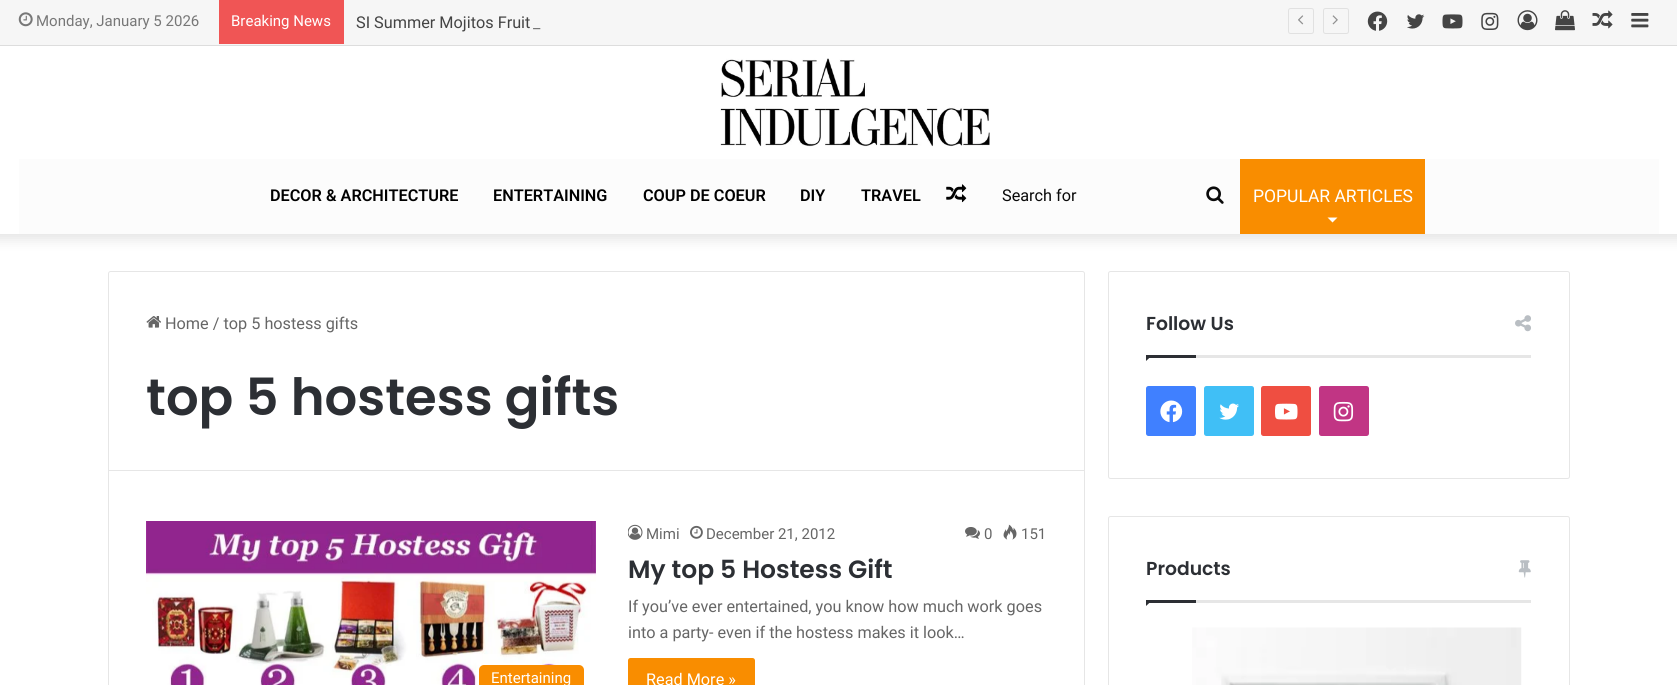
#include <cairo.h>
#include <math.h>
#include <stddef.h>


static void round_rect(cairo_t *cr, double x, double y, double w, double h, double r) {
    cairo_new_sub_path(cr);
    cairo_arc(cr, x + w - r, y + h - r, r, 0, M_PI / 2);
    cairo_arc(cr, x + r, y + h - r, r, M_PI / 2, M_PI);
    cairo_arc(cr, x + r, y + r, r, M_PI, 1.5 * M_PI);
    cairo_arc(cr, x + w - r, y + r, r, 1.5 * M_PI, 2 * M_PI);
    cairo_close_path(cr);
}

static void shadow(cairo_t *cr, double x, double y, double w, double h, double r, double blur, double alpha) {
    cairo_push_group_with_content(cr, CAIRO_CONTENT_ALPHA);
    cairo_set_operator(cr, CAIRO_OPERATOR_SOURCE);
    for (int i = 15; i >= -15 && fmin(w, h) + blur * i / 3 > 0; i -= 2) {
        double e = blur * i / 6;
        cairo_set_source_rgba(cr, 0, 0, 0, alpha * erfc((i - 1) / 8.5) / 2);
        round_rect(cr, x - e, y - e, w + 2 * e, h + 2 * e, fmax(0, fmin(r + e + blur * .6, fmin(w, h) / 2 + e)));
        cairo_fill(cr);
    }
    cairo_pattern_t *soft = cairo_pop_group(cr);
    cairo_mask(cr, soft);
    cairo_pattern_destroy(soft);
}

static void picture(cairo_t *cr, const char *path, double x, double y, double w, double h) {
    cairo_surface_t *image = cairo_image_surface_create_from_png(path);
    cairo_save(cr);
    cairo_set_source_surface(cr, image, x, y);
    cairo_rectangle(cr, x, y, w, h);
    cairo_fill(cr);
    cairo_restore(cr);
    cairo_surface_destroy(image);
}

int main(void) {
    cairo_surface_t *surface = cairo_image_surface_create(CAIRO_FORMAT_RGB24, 1677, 685);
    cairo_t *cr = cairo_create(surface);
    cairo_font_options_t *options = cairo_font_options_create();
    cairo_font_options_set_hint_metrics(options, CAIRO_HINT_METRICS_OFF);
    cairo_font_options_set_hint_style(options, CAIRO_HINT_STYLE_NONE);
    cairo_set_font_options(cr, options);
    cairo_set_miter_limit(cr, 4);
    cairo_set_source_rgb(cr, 1, 1, 1);
    cairo_paint(cr);
    cairo_set_source_rgb(cr, 0, 0, 0);
    shadow(cr, -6, -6, 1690, 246, 0, 6, 0.1);
    cairo_set_source_rgb(cr, 1, 1, 1);
    cairo_rectangle(cr, 0, 46, 1677, 188);
    cairo_fill(cr);
    cairo_set_source_rgb(cr, 0.961, 0.961, 0.961);
    cairo_rectangle(cr, 0, 0, 1677, 45);
    cairo_fill(cr);
    cairo_set_source_rgb(cr, 0.867, 0.867, 0.867);
    cairo_rectangle(cr, 0, 45, 1677, 1);
    cairo_fill(cr);
    picture(cr, "img1.png", 18, 12, 15, 15);
    cairo_select_font_face(cr, "Roboto", CAIRO_FONT_SLANT_NORMAL, CAIRO_FONT_WEIGHT_NORMAL);
    cairo_set_font_size(cr, 15);
    cairo_set_source_rgb(cr, 0.467, 0.467, 0.467);
    cairo_move_to(cr, 36, 26);
    cairo_show_text(cr, "Monday, January 5 2026");
    cairo_set_source_rgb(cr, 0.941, 0.333, 0.333);
    cairo_rectangle(cr, 219, 0, 125, 44);
    cairo_fill(cr);
    cairo_set_source_rgb(cr, 1, 1, 1);
    cairo_move_to(cr, 231, 26);
    cairo_show_text(cr, "Breaking News");
    cairo_set_font_size(cr, 16.25);
    cairo_set_source_rgb(cr, 0.267, 0.267, 0.267);
    cairo_move_to(cr, 356, 28);
    cairo_show_text(cr, "SI Summer Mojitos Fruit");
    cairo_set_source_rgb(cr, 0.467, 0.467, 0.467);
    cairo_move_to(cr, 533, 28);
    cairo_show_text(cr, "_");
    round_rect(cr, 1288.5, 8.5, 25, 25, 2);
    cairo_set_source_rgb(cr, 0.882, 0.882, 0.882);
    cairo_set_line_width(cr, 1);
    cairo_stroke(cr);
    picture(cr, "img2.png", 1298, 15, 6, 10);
    round_rect(cr, 1323.5, 8.5, 25, 25, 2);
    cairo_stroke(cr);
    picture(cr, "img3.png", 1332, 15, 6, 10);
    picture(cr, "img4.png", 1367, 11, 21, 20);
    picture(cr, "img5.png", 1407, 14, 18, 15);
    picture(cr, "img6.png", 1442, 14, 21, 15);
    picture(cr, "img7.png", 1481, 12, 18, 18);
    picture(cr, "img8.png", 1517, 10, 21, 21);
    picture(cr, "img9.png", 1555, 10, 20, 21);
    picture(cr, "img10.png", 1592, 10, 21, 19);
    picture(cr, "img11.png", 1631, 13, 18, 15);
    picture(cr, "img12.png", 720, 58, 270, 89);
    cairo_set_source_rgb(cr, 0.988, 0.988, 0.988);
    cairo_rectangle(cr, 19, 159, 1640, 75);
    cairo_fill(cr);
    cairo_select_font_face(cr, "Roboto SemiBold", CAIRO_FONT_SLANT_NORMAL, CAIRO_FONT_WEIGHT_NORMAL);
    cairo_set_source_rgb(cr, 0, 0, 0);
    cairo_move_to(cr, 270, 201);
    cairo_show_text(cr, "DECOR & ARCHITECTURE");
    cairo_move_to(cr, 493, 201);
    cairo_show_text(cr, "ENTERTAINING");
    cairo_move_to(cr, 643, 201);
    cairo_show_text(cr, "COUP DE COEUR");
    cairo_move_to(cr, 800, 201);
    cairo_show_text(cr, "DIY");
    cairo_move_to(cr, 861, 201);
    cairo_show_text(cr, "TRAVEL");
    picture(cr, "img13.png", 946, 184, 21, 19);
    cairo_select_font_face(cr, "Roboto", CAIRO_FONT_SLANT_NORMAL, CAIRO_FONT_WEIGHT_NORMAL);
    cairo_set_source_rgb(cr, 0.039, 0.039, 0.039);
    cairo_move_to(cr, 1002, 201);
    cairo_show_text(cr, "Search for");
    picture(cr, "img14.png", 1206, 186, 18, 18);
    cairo_set_source_rgb(cr, 0.976, 0.553, 0);
    cairo_rectangle(cr, 1240, 159, 185, 75);
    cairo_fill(cr);
    cairo_set_font_size(cr, 17.5);
    cairo_set_source_rgb(cr, 1, 1, 1);
    cairo_move_to(cr, 1253, 202);
    cairo_show_text(cr, "POPULAR ARTICLES");
    cairo_new_path(cr);
    cairo_move_to(cr, 1327.5, 217.5);
    cairo_line_to(cr, 1337.5, 217.5);
    cairo_line_to(cr, 1332.5, 222.5);
    cairo_close_path(cr);
    cairo_fill(cr);
    cairo_new_path(cr);
    cairo_move_to(cr, 110.5, 271.5);
    cairo_line_to(cr, 1082.5, 271.5);
    cairo_curve_to(cr, 1083.5, 271.5, 1084.5, 272.5, 1084.5, 273.5);
    cairo_line_to(cr, 1084.5, 470.5);
    cairo_line_to(cr, 108.5, 470.5);
    cairo_line_to(cr, 108.5, 273.5);
    cairo_curve_to(cr, 108.5, 272.5, 109.5, 271.5, 110.5, 271.5);
    cairo_close_path(cr);
    cairo_set_source_rgb(cr, 0.902, 0.902, 0.902);
    cairo_stroke(cr);
    picture(cr, "img15.png", 146, 316, 15, 12);
    cairo_set_font_size(cr, 16.25);
    cairo_set_source_rgb(cr, 0.4, 0.4, 0.4);
    cairo_move_to(cr, 165, 329);
    cairo_show_text(cr, "Home / top 5 hostess gifts");
    cairo_select_font_face(cr, "Poppins SemiBold", CAIRO_FONT_SLANT_NORMAL, CAIRO_FONT_WEIGHT_NORMAL);
    cairo_set_font_size(cr, 51.25);
    cairo_set_source_rgb(cr, 0.173, 0.184, 0.204);
    cairo_move_to(cr, 146, 415);
    cairo_show_text(cr, "top 5 hostess gifts");
    cairo_set_source_rgb(cr, 0.902, 0.902, 0.902);
    cairo_rectangle(cr, 1084, 471, 1, 214);
    cairo_fill(cr);
    cairo_rectangle(cr, 108, 471, 1, 214);
    cairo_fill(cr);
    picture(cr, "img16.png", 146, 521, 450, 164);
    cairo_set_source_rgb(cr, 0.976, 0.553, 0);
    round_rect(cr, 479, 665, 105, 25, 5);
    cairo_fill(cr);
    cairo_select_font_face(cr, "Roboto", CAIRO_FONT_SLANT_NORMAL, CAIRO_FONT_WEIGHT_NORMAL);
    cairo_set_font_size(cr, 15);
    cairo_set_source_rgb(cr, 1, 1, 1);
    cairo_move_to(cr, 491, 683);
    cairo_show_text(cr, "Entertaining");
    picture(cr, "img17.png", 628, 524, 15, 16);
    cairo_set_source_rgb(cr, 0.4, 0.4, 0.4);
    cairo_move_to(cr, 646, 539);
    cairo_show_text(cr, "Mimi");
    picture(cr, "img18.png", 690, 525, 13, 14);
    cairo_move_to(cr, 706, 539);
    cairo_show_text(cr, "December 21, 2012");
    picture(cr, "img19.png", 965, 527, 15, 12);
    cairo_move_to(cr, 984, 539);
    cairo_show_text(cr, "0");
    picture(cr, "img20.png", 1003, 524, 14, 16);
    cairo_move_to(cr, 1021, 539);
    cairo_show_text(cr, "151");
    cairo_select_font_face(cr, "Poppins SemiBold", CAIRO_FONT_SLANT_NORMAL, CAIRO_FONT_WEIGHT_NORMAL);
    cairo_set_font_size(cr, 25);
    cairo_set_source_rgb(cr, 0.173, 0.184, 0.204);
    cairo_move_to(cr, 628, 578);
    cairo_show_text(cr, "My top 5 Hostess Gift");
    cairo_select_font_face(cr, "Roboto", CAIRO_FONT_SLANT_NORMAL, CAIRO_FONT_WEIGHT_NORMAL);
    cairo_set_font_size(cr, 16.25);
    cairo_set_source_rgb(cr, 0.4, 0.4, 0.4);
    cairo_move_to(cr, 628, 612);
    cairo_show_text(cr, "If you’ve ever entertained, you know how much work goes");
    cairo_move_to(cr, 628, 638);
    cairo_show_text(cr, "into a party- even if the hostess makes it look…");
    cairo_set_source_rgb(cr, 0.976, 0.553, 0);
    round_rect(cr, 628, 658, 127, 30, 2.5);
    cairo_fill(cr);
    cairo_set_source_rgb(cr, 1, 1, 1);
    cairo_move_to(cr, 646, 685);
    cairo_show_text(cr, "Read More »");
    round_rect(cr, 1108.5, 271.5, 461, 207, 2);
    cairo_set_source_rgb(cr, 0.902, 0.902, 0.902);
    cairo_stroke(cr);
    cairo_rectangle(cr, 1196, 355, 335, 3);
    cairo_fill(cr);
    cairo_select_font_face(cr, "Poppins SemiBold", CAIRO_FONT_SLANT_NORMAL, CAIRO_FONT_WEIGHT_NORMAL);
    cairo_set_font_size(cr, 18.75);
    cairo_set_source_rgb(cr, 0.173, 0.184, 0.204);
    cairo_move_to(cr, 1146, 330);
    cairo_show_text(cr, "Follow Us");
    picture(cr, "img21.png", 1515, 315, 16, 17);
    cairo_new_path(cr);
    cairo_move_to(cr, 1146, 355);
    cairo_line_to(cr, 1152.5, 355);
    cairo_line_to(cr, 1146, 361);
    cairo_close_path(cr);
    cairo_fill(cr);
    cairo_rectangle(cr, 1146, 355, 50, 3);
    cairo_fill(cr);
    cairo_set_source_rgb(cr, 0.251, 0.502, 1);
    round_rect(cr, 1146, 386, 50, 50, 2.5);
    cairo_fill(cr);
    picture(cr, "img22.png", 1160, 400, 23, 23);
    cairo_set_source_rgb(cr, 0.251, 0.749, 0.961);
    round_rect(cr, 1204, 386, 50, 50, 2.5);
    cairo_fill(cr);
    picture(cr, "img23.png", 1219, 403, 20, 17);
    cairo_set_source_rgb(cr, 0.937, 0.306, 0.255);
    round_rect(cr, 1261, 386, 50, 50, 2.5);
    cairo_fill(cr);
    picture(cr, "img24.png", 1275, 403, 23, 17);
    cairo_set_source_rgb(cr, 0.757, 0.208, 0.518);
    round_rect(cr, 1319, 386, 50, 50, 2.5);
    cairo_fill(cr);
    picture(cr, "img25.png", 1333, 401, 21, 21);
    round_rect(cr, 1108.5, 516.5, 461, 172, 2);
    cairo_set_source_rgb(cr, 0.902, 0.902, 0.902);
    cairo_stroke(cr);
    cairo_rectangle(cr, 1196, 600, 335, 3);
    cairo_fill(cr);
    cairo_set_source_rgb(cr, 0.173, 0.184, 0.204);
    cairo_move_to(cr, 1146, 575);
    cairo_show_text(cr, "Products");
    picture(cr, "img26.png", 1518, 560, 13, 18);
    cairo_new_path(cr);
    cairo_move_to(cr, 1146, 600);
    cairo_line_to(cr, 1152.5, 600);
    cairo_line_to(cr, 1146, 606);
    cairo_close_path(cr);
    cairo_fill(cr);
    cairo_rectangle(cr, 1146, 600, 50, 3);
    cairo_fill(cr);
    picture(cr, "img27.png", 1192, 627, 330, 58);
    cairo_surface_write_to_png(surface, "page.png");
    cairo_font_options_destroy(options);
    cairo_destroy(cr);
    cairo_surface_destroy(surface);
    return 0;
}
